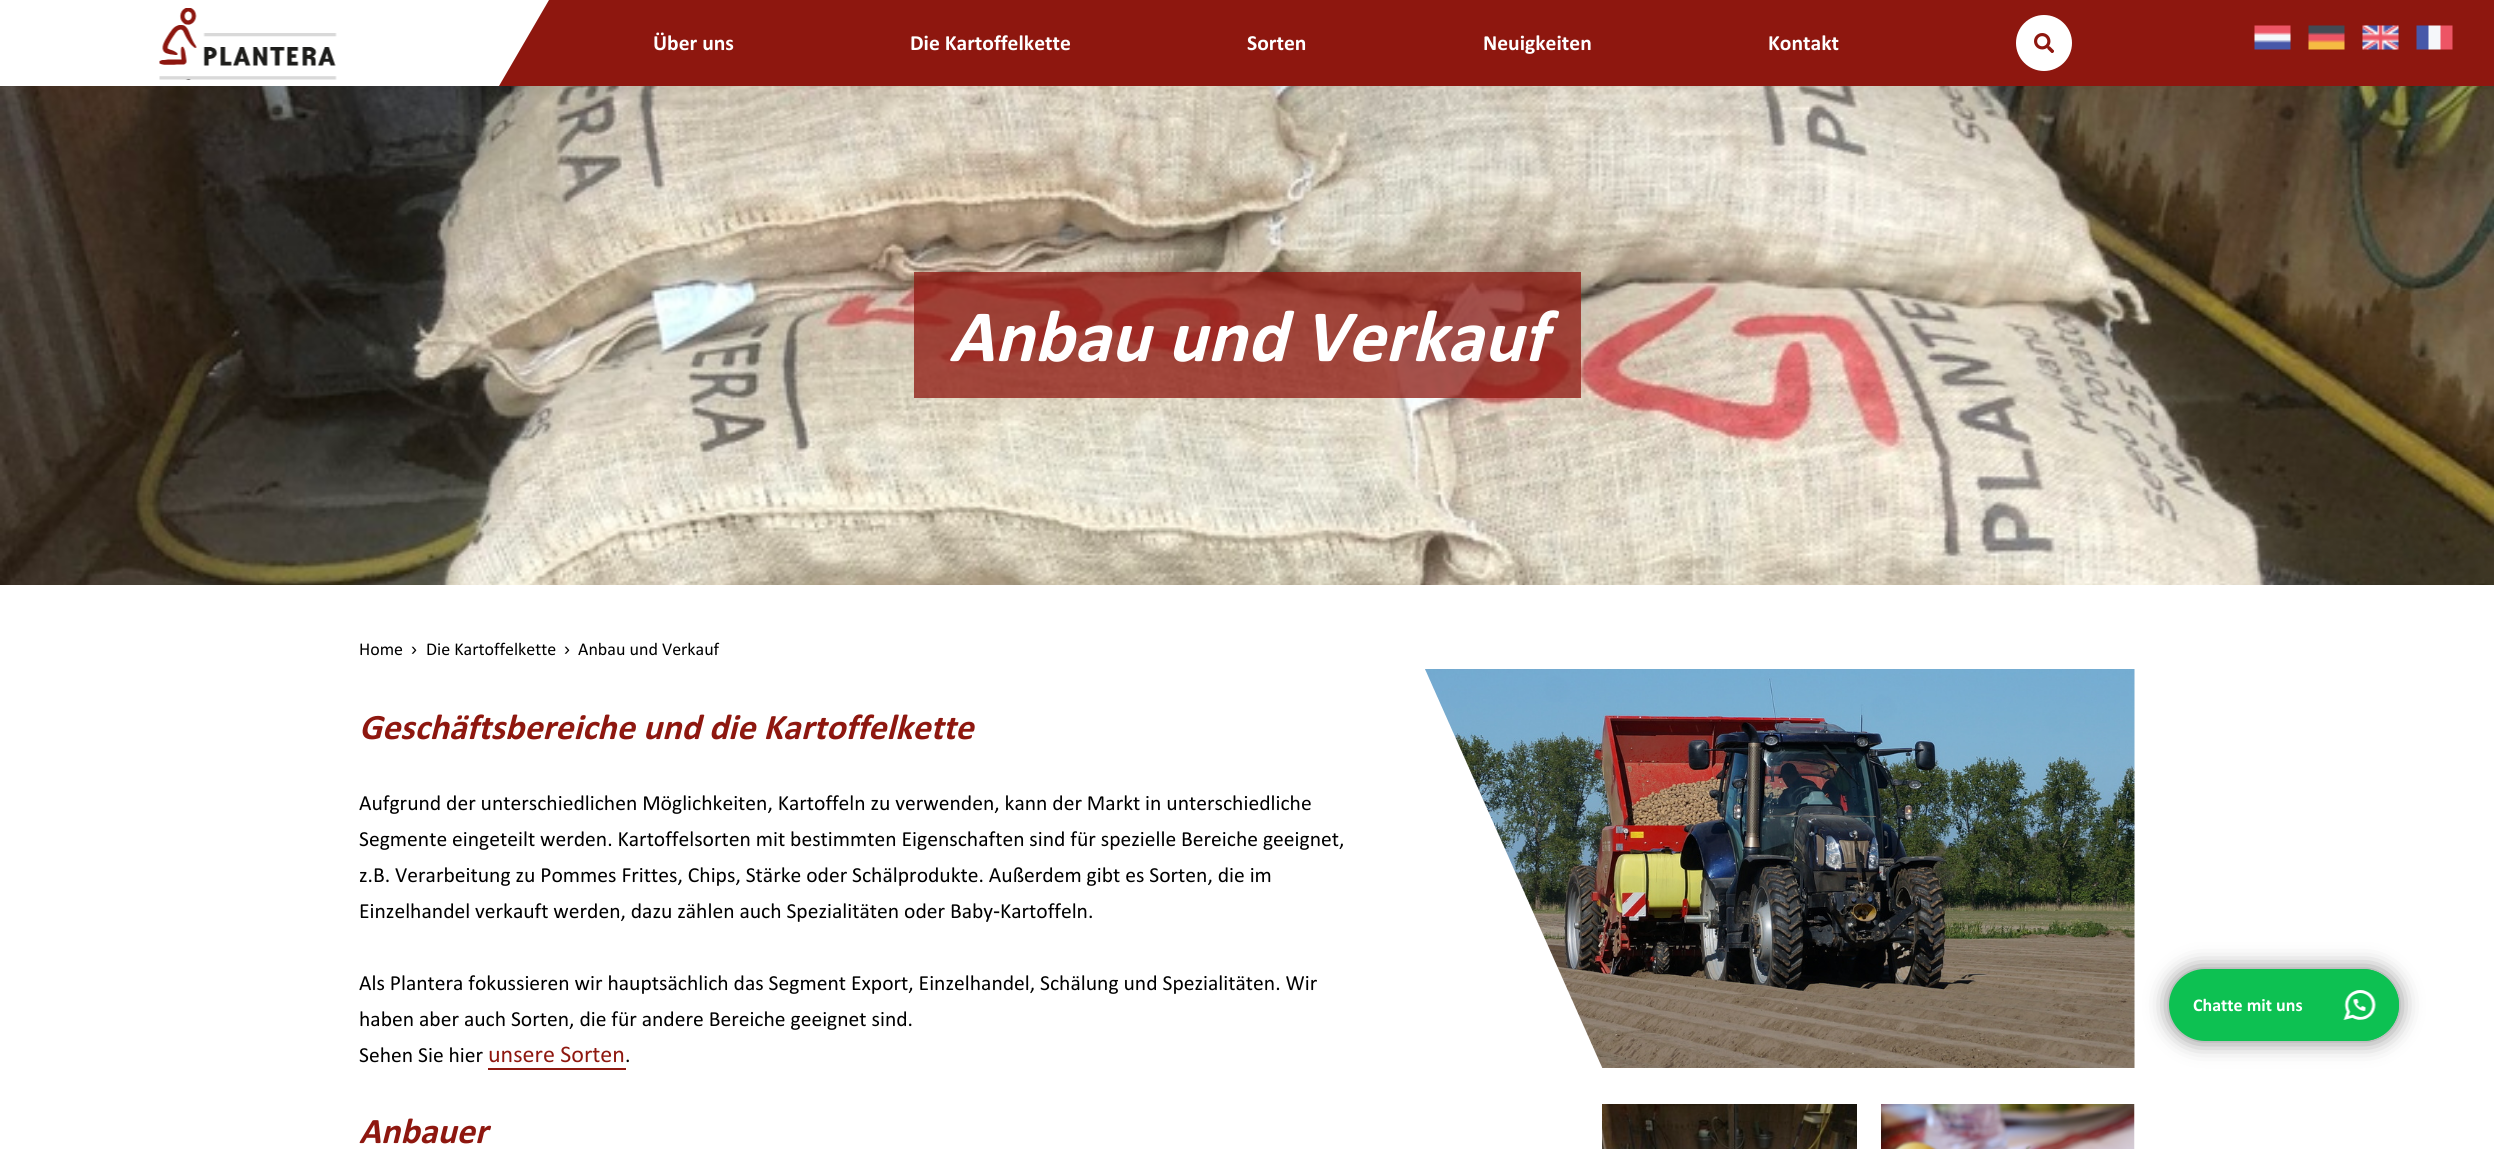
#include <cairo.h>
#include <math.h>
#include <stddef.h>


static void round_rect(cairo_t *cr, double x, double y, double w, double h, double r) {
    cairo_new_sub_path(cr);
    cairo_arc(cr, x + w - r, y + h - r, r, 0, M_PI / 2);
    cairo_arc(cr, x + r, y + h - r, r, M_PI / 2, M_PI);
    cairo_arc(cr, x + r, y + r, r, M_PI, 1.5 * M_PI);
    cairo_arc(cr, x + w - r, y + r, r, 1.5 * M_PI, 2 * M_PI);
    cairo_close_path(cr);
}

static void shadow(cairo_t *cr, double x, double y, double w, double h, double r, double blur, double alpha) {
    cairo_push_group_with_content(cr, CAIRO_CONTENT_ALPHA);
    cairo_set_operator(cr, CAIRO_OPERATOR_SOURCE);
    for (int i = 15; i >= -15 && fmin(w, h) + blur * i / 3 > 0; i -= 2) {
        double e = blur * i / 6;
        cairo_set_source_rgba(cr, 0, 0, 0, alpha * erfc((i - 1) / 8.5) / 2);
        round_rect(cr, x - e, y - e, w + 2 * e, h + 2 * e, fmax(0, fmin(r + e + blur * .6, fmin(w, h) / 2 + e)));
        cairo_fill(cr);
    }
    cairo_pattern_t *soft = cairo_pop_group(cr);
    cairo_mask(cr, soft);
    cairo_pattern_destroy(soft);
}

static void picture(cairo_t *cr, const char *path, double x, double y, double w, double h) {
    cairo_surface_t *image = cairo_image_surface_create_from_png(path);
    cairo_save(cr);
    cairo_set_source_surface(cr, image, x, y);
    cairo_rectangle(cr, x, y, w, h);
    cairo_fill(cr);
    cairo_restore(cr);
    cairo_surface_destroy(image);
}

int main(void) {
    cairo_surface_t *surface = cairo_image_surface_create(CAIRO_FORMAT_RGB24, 2494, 1149);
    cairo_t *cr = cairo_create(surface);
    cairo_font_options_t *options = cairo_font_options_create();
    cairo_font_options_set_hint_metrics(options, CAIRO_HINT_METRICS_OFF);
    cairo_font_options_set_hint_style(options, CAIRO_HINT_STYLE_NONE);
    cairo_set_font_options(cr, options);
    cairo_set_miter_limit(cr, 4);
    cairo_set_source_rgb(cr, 1, 1, 1);
    cairo_paint(cr);
    cairo_set_source_rgb(cr, 0.557, 0.09, 0.059);
    cairo_rectangle(cr, 499, 0, 1995, 86);
    cairo_fill(cr);
    cairo_set_source_rgb(cr, 1, 1, 1);
    cairo_new_path(cr);
    cairo_move_to(cr, 55, 0);
    cairo_line_to(cr, 549, 0);
    cairo_line_to(cr, 499, 86);
    cairo_line_to(cr, 5, 86);
    cairo_close_path(cr);
    cairo_fill(cr);
    picture(cr, "img1.png", 159, 8, 178, 72);
    cairo_select_font_face(cr, "Calibri", CAIRO_FONT_SLANT_NORMAL, CAIRO_FONT_WEIGHT_BOLD);
    cairo_set_font_size(cr, 21.6);
    cairo_move_to(cr, 653, 50);
    cairo_show_text(cr, "Über uns");
    cairo_move_to(cr, 910, 50);
    cairo_show_text(cr, "Die Kartoffelkette");
    cairo_move_to(cr, 1247, 50);
    cairo_show_text(cr, "Sorten");
    cairo_move_to(cr, 1483, 50);
    cairo_show_text(cr, "Neuigkeiten");
    cairo_move_to(cr, 1768, 50);
    cairo_show_text(cr, "Kontakt");
    cairo_new_path(cr);
    cairo_arc(cr, 2044, 43, 28, 0, 2 * M_PI);
    cairo_fill(cr);
    picture(cr, "img2.png", 2034, 33, 20, 20);
    picture(cr, "img3.png", 2254, 25, 37, 25);
    picture(cr, "img4.png", 2308, 25, 37, 25);
    picture(cr, "img5.png", 2362, 25, 37, 25);
    picture(cr, "img6.png", 2416, 25, 37, 25);
    picture(cr, "img7.png", 0, 86, 2494, 499);
    cairo_set_source_rgba(cr, 0.557, 0.09, 0.059, 0.75);
    cairo_rectangle(cr, 914, 272, 667, 126);
    cairo_fill(cr);
    cairo_select_font_face(cr, "Calibri", CAIRO_FONT_SLANT_ITALIC, CAIRO_FONT_WEIGHT_BOLD);
    cairo_set_font_size(cr, 74.25);
    cairo_set_source_rgb(cr, 1, 1, 1);
    cairo_move_to(cr, 949, 361);
    cairo_show_text(cr, "Anbau und Verkauf");
    cairo_select_font_face(cr, "Calibri", CAIRO_FONT_SLANT_NORMAL, CAIRO_FONT_WEIGHT_NORMAL);
    cairo_set_font_size(cr, 18);
    cairo_set_source_rgb(cr, 0, 0, 0);
    cairo_move_to(cr, 359, 655);
    cairo_show_text(cr, "Home");
    cairo_select_font_face(cr, "Liberation Sans", CAIRO_FONT_SLANT_NORMAL, CAIRO_FONT_WEIGHT_NORMAL);
    cairo_move_to(cr, 411, 655);
    cairo_show_text(cr, "›");
    cairo_select_font_face(cr, "Calibri", CAIRO_FONT_SLANT_NORMAL, CAIRO_FONT_WEIGHT_NORMAL);
    cairo_move_to(cr, 426, 655);
    cairo_show_text(cr, "Die Kartoffelkette");
    cairo_select_font_face(cr, "Liberation Sans", CAIRO_FONT_SLANT_NORMAL, CAIRO_FONT_WEIGHT_NORMAL);
    cairo_move_to(cr, 564, 655);
    cairo_show_text(cr, "›");
    cairo_select_font_face(cr, "Calibri", CAIRO_FONT_SLANT_NORMAL, CAIRO_FONT_WEIGHT_NORMAL);
    cairo_move_to(cr, 578, 655);
    cairo_show_text(cr, "Anbau und Verkauf");
    cairo_select_font_face(cr, "Calibri", CAIRO_FONT_SLANT_ITALIC, CAIRO_FONT_WEIGHT_BOLD);
    cairo_set_font_size(cr, 36);
    cairo_set_source_rgb(cr, 0.557, 0.09, 0.059);
    cairo_move_to(cr, 359, 739);
    cairo_show_text(cr, "Geschäftsbereiche und die Kartoffelkette");
    cairo_select_font_face(cr, "Calibri", CAIRO_FONT_SLANT_NORMAL, CAIRO_FONT_WEIGHT_NORMAL);
    cairo_set_font_size(cr, 21.6);
    cairo_set_source_rgb(cr, 0, 0, 0);
    cairo_move_to(cr, 359, 810);
    cairo_show_text(cr, "Aufgrund der unterschiedlichen Möglichkeiten, Kartoffeln zu verwenden, kann der Markt in unterschiedliche");
    cairo_move_to(cr, 359, 846);
    cairo_show_text(cr, "Segmente eingeteilt werden. Kartoffelsorten mit bestimmten Eigenschaften sind für spezielle Bereiche geeignet,");
    cairo_move_to(cr, 359, 882);
    cairo_show_text(cr, "z.B. Verarbeitung zu Pommes Frittes, Chips, Stärke oder Schälprodukte. Außerdem gibt es Sorten, die im");
    cairo_move_to(cr, 359, 918);
    cairo_show_text(cr, "Einzelhandel verkauft werden, dazu zählen auch Spezialitäten oder Baby");
    cairo_select_font_face(cr, "Liberation Sans", CAIRO_FONT_SLANT_NORMAL, CAIRO_FONT_WEIGHT_NORMAL);
    cairo_move_to(cr, 993, 918);
    cairo_show_text(cr, "-");
    cairo_select_font_face(cr, "Calibri", CAIRO_FONT_SLANT_NORMAL, CAIRO_FONT_WEIGHT_NORMAL);
    cairo_move_to(cr, 1000, 918);
    cairo_show_text(cr, "Kartoffeln.");
    cairo_move_to(cr, 359, 990);
    cairo_show_text(cr, "Als Plantera fokussieren wir hauptsächlich das Segment Export, Einzelhandel, Schälung und Spezialitäten. Wir");
    cairo_move_to(cr, 359, 1026);
    cairo_show_text(cr, "haben aber auch Sorten, die für andere Bereiche geeignet sind.");
    cairo_move_to(cr, 359, 1062);
    cairo_show_text(cr, "Sehen Sie hier");
    cairo_set_font_size(cr, 24);
    cairo_set_source_rgb(cr, 0.557, 0.09, 0.059);
    cairo_move_to(cr, 488, 1062);
    cairo_show_text(cr, "unsere Sorten");
    cairo_rectangle(cr, 488, 1068, 138, 2);
    cairo_fill(cr);
    cairo_set_font_size(cr, 21.6);
    cairo_set_source_rgb(cr, 0, 0, 0);
    cairo_move_to(cr, 625, 1062);
    cairo_show_text(cr, ".");
    cairo_select_font_face(cr, "Calibri", CAIRO_FONT_SLANT_ITALIC, CAIRO_FONT_WEIGHT_BOLD);
    cairo_set_font_size(cr, 36);
    cairo_set_source_rgb(cr, 0.557, 0.09, 0.059);
    cairo_move_to(cr, 359, 1143);
    cairo_show_text(cr, "Anbauer");
    picture(cr, "img8.png", 1425, 669, 710, 399);
    picture(cr, "img9.png", 1602, 1104, 255, 45);
    picture(cr, "img10.png", 1881, 1104, 254, 45);
    cairo_set_source_rgb(cr, 0, 0, 0);
    shadow(cr, 2169, 969, 230, 72, 36, 11, 0.5);
    cairo_set_source_rgb(cr, 0.051, 0.757, 0.322);
    round_rect(cr, 2169, 969, 230, 72, 36);
    cairo_fill(cr);
    cairo_select_font_face(cr, "Calibri", CAIRO_FONT_SLANT_NORMAL, CAIRO_FONT_WEIGHT_BOLD);
    cairo_set_font_size(cr, 18);
    cairo_set_source_rgb(cr, 1, 1, 1);
    cairo_move_to(cr, 2193, 1011);
    cairo_show_text(cr, "Chatte mit uns");
    cairo_set_source_rgb(cr, 0.051, 0.757, 0.322);
    cairo_new_path(cr);
    cairo_move_to(cr, 2327, 969);
    cairo_line_to(cr, 2363, 969);
    cairo_curve_to(cr, 2383, 969, 2399, 985, 2399, 1005);
    cairo_curve_to(cr, 2399, 1025, 2383, 1041, 2363, 1041);
    cairo_line_to(cr, 2327, 1041);
    cairo_close_path(cr);
    cairo_fill(cr);
    picture(cr, "img11.png", 2343, 990, 33, 30);
    cairo_surface_write_to_png(surface, "page.png");
    cairo_font_options_destroy(options);
    cairo_destroy(cr);
    cairo_surface_destroy(surface);
    return 0;
}
